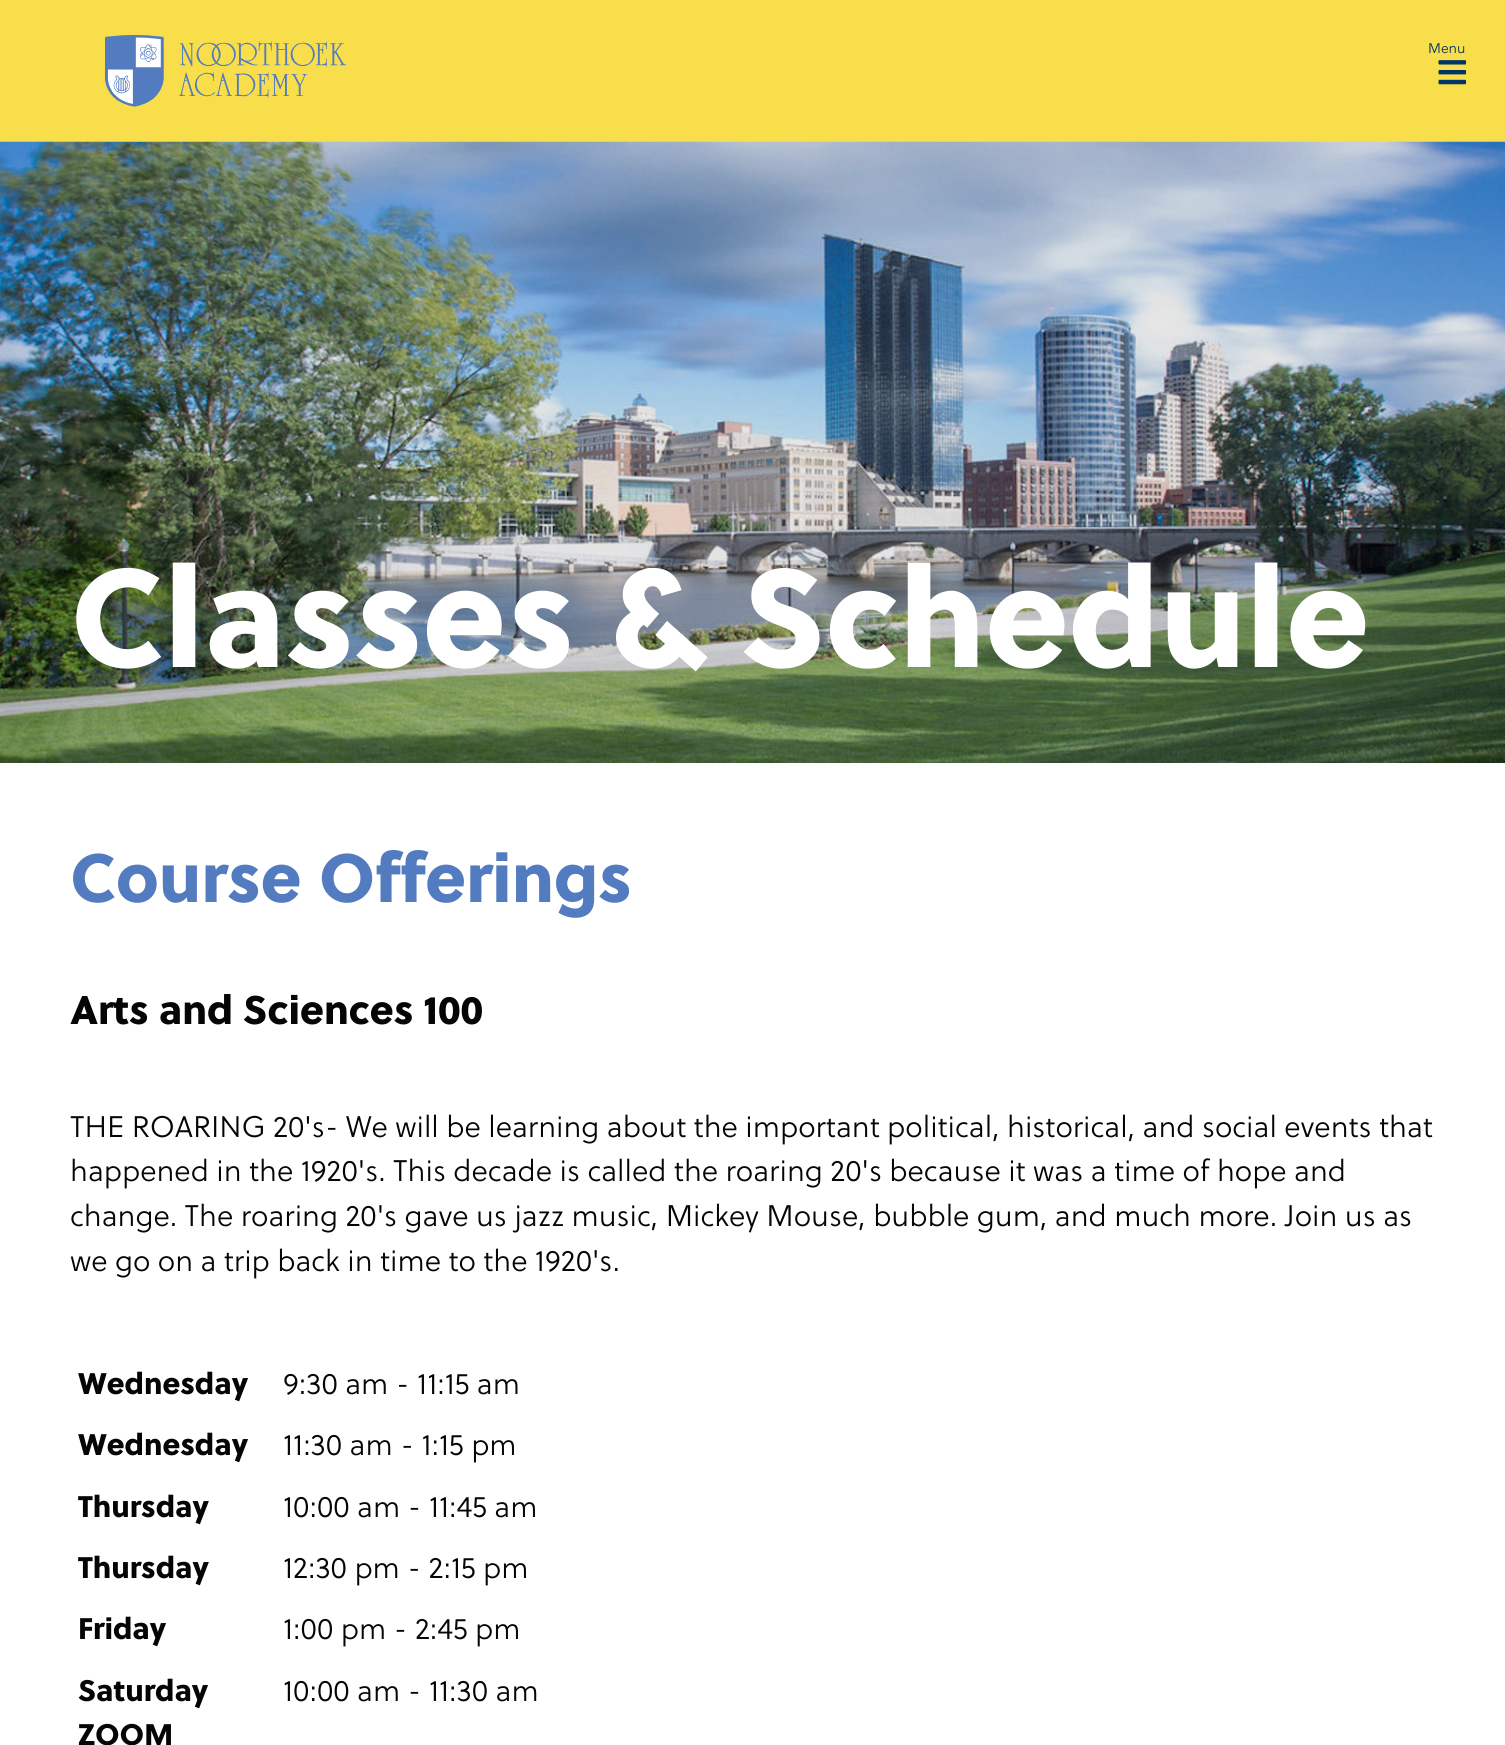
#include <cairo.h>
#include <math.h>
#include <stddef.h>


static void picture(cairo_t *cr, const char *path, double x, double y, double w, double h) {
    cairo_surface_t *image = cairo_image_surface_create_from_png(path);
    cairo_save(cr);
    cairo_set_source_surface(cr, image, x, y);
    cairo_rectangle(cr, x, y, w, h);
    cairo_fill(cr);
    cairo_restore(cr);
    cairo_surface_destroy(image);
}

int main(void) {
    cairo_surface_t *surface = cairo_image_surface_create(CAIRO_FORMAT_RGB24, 1505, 1745);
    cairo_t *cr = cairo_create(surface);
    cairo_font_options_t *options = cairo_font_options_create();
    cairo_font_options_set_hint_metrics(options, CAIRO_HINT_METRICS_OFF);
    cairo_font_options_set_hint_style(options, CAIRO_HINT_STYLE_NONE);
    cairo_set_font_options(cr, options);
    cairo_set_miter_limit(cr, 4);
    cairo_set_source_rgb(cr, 1, 1, 1);
    cairo_paint(cr);
    cairo_set_source_rgb(cr, 0.973, 0.871, 0.294);
    cairo_rectangle(cr, 0, 0, 1505, 142);
    cairo_fill(cr);
    picture(cr, "img1.png", 105, 35, 242, 72);
    cairo_select_font_face(cr, "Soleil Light", CAIRO_FONT_SLANT_NORMAL, CAIRO_FONT_WEIGHT_NORMAL);
    cairo_set_font_size(cr, 14);
    cairo_set_source_rgb(cr, 0, 0.2, 0.4);
    cairo_move_to(cr, 1428, 53);
    cairo_show_text(cr, "Menu");
    picture(cr, "img2.png", 1438, 60, 29, 25);
    picture(cr, "img3.png", 0, 141, 1505, 622);
    cairo_select_font_face(cr, "Soleil ExtraBold", CAIRO_FONT_SLANT_NORMAL, CAIRO_FONT_WEIGHT_NORMAL);
    cairo_set_font_size(cr, 139.25);
    cairo_set_source_rgb(cr, 1, 1, 1);
    cairo_move_to(cr, 70, 667);
    cairo_show_text(cr, "Classes & Schedule");
    cairo_set_font_size(cr, 68.25);
    cairo_set_source_rgb(cr, 0.325, 0.482, 0.749);
    cairo_move_to(cr, 70, 902);
    cairo_show_text(cr, "Course Offerings");
    cairo_set_font_size(cr, 40);
    cairo_set_source_rgb(cr, 0.02, 0.02, 0.02);
    cairo_move_to(cr, 70, 1024);
    cairo_show_text(cr, "Arts and Sciences 100");
    cairo_select_font_face(cr, "Soleil Light", CAIRO_FONT_SLANT_NORMAL, CAIRO_FONT_WEIGHT_NORMAL);
    cairo_set_font_size(cr, 29.75);
    cairo_move_to(cr, 70, 1137);
    cairo_show_text(cr, "THE ROARING 20's- We will be learning about the important political, historical, and social events that");
    cairo_move_to(cr, 70, 1181);
    cairo_show_text(cr, "happened in the 1920's. This decade is called the roaring 20's because it was a time of hope and");
    cairo_move_to(cr, 70, 1226);
    cairo_show_text(cr, "change. The roaring 20's gave us jazz music, Mickey Mouse, bubble gum, and much more. Join us as");
    cairo_move_to(cr, 70, 1271);
    cairo_show_text(cr, "we go on a trip back in time to the 1920's.");
    cairo_select_font_face(cr, "Soleil ExtraBold", CAIRO_FONT_SLANT_NORMAL, CAIRO_FONT_WEIGHT_NORMAL);
    cairo_move_to(cr, 78, 1394);
    cairo_show_text(cr, "Wednesday");
    cairo_select_font_face(cr, "Soleil Light", CAIRO_FONT_SLANT_NORMAL, CAIRO_FONT_WEIGHT_NORMAL);
    cairo_move_to(cr, 283, 1394);
    cairo_show_text(cr, "9:30 am - 11:15 am");
    cairo_select_font_face(cr, "Soleil ExtraBold", CAIRO_FONT_SLANT_NORMAL, CAIRO_FONT_WEIGHT_NORMAL);
    cairo_move_to(cr, 78, 1455);
    cairo_show_text(cr, "Wednesday");
    cairo_select_font_face(cr, "Soleil Light", CAIRO_FONT_SLANT_NORMAL, CAIRO_FONT_WEIGHT_NORMAL);
    cairo_move_to(cr, 283, 1455);
    cairo_show_text(cr, "11:30 am - 1:15 pm");
    cairo_select_font_face(cr, "Soleil ExtraBold", CAIRO_FONT_SLANT_NORMAL, CAIRO_FONT_WEIGHT_NORMAL);
    cairo_move_to(cr, 78, 1517);
    cairo_show_text(cr, "Thursday");
    cairo_select_font_face(cr, "Soleil Light", CAIRO_FONT_SLANT_NORMAL, CAIRO_FONT_WEIGHT_NORMAL);
    cairo_move_to(cr, 283, 1517);
    cairo_show_text(cr, "10:00 am - 11:45 am");
    cairo_select_font_face(cr, "Soleil ExtraBold", CAIRO_FONT_SLANT_NORMAL, CAIRO_FONT_WEIGHT_NORMAL);
    cairo_move_to(cr, 78, 1578);
    cairo_show_text(cr, "Thursday");
    cairo_select_font_face(cr, "Soleil Light", CAIRO_FONT_SLANT_NORMAL, CAIRO_FONT_WEIGHT_NORMAL);
    cairo_move_to(cr, 283, 1578);
    cairo_show_text(cr, "12:30 pm - 2:15 pm");
    cairo_select_font_face(cr, "Soleil ExtraBold", CAIRO_FONT_SLANT_NORMAL, CAIRO_FONT_WEIGHT_NORMAL);
    cairo_move_to(cr, 78, 1639);
    cairo_show_text(cr, "Friday");
    cairo_select_font_face(cr, "Soleil Light", CAIRO_FONT_SLANT_NORMAL, CAIRO_FONT_WEIGHT_NORMAL);
    cairo_move_to(cr, 283, 1639);
    cairo_show_text(cr, "1:00 pm - 2:45 pm");
    cairo_select_font_face(cr, "Soleil ExtraBold", CAIRO_FONT_SLANT_NORMAL, CAIRO_FONT_WEIGHT_NORMAL);
    cairo_move_to(cr, 78, 1701);
    cairo_show_text(cr, "Saturday");
    cairo_move_to(cr, 78, 1745);
    cairo_show_text(cr, "ZOOM");
    cairo_select_font_face(cr, "Soleil Light", CAIRO_FONT_SLANT_NORMAL, CAIRO_FONT_WEIGHT_NORMAL);
    cairo_move_to(cr, 283, 1701);
    cairo_show_text(cr, "10:00 am - 11:30 am");
    cairo_surface_write_to_png(surface, "page.png");
    cairo_font_options_destroy(options);
    cairo_destroy(cr);
    cairo_surface_destroy(surface);
    return 0;
}
